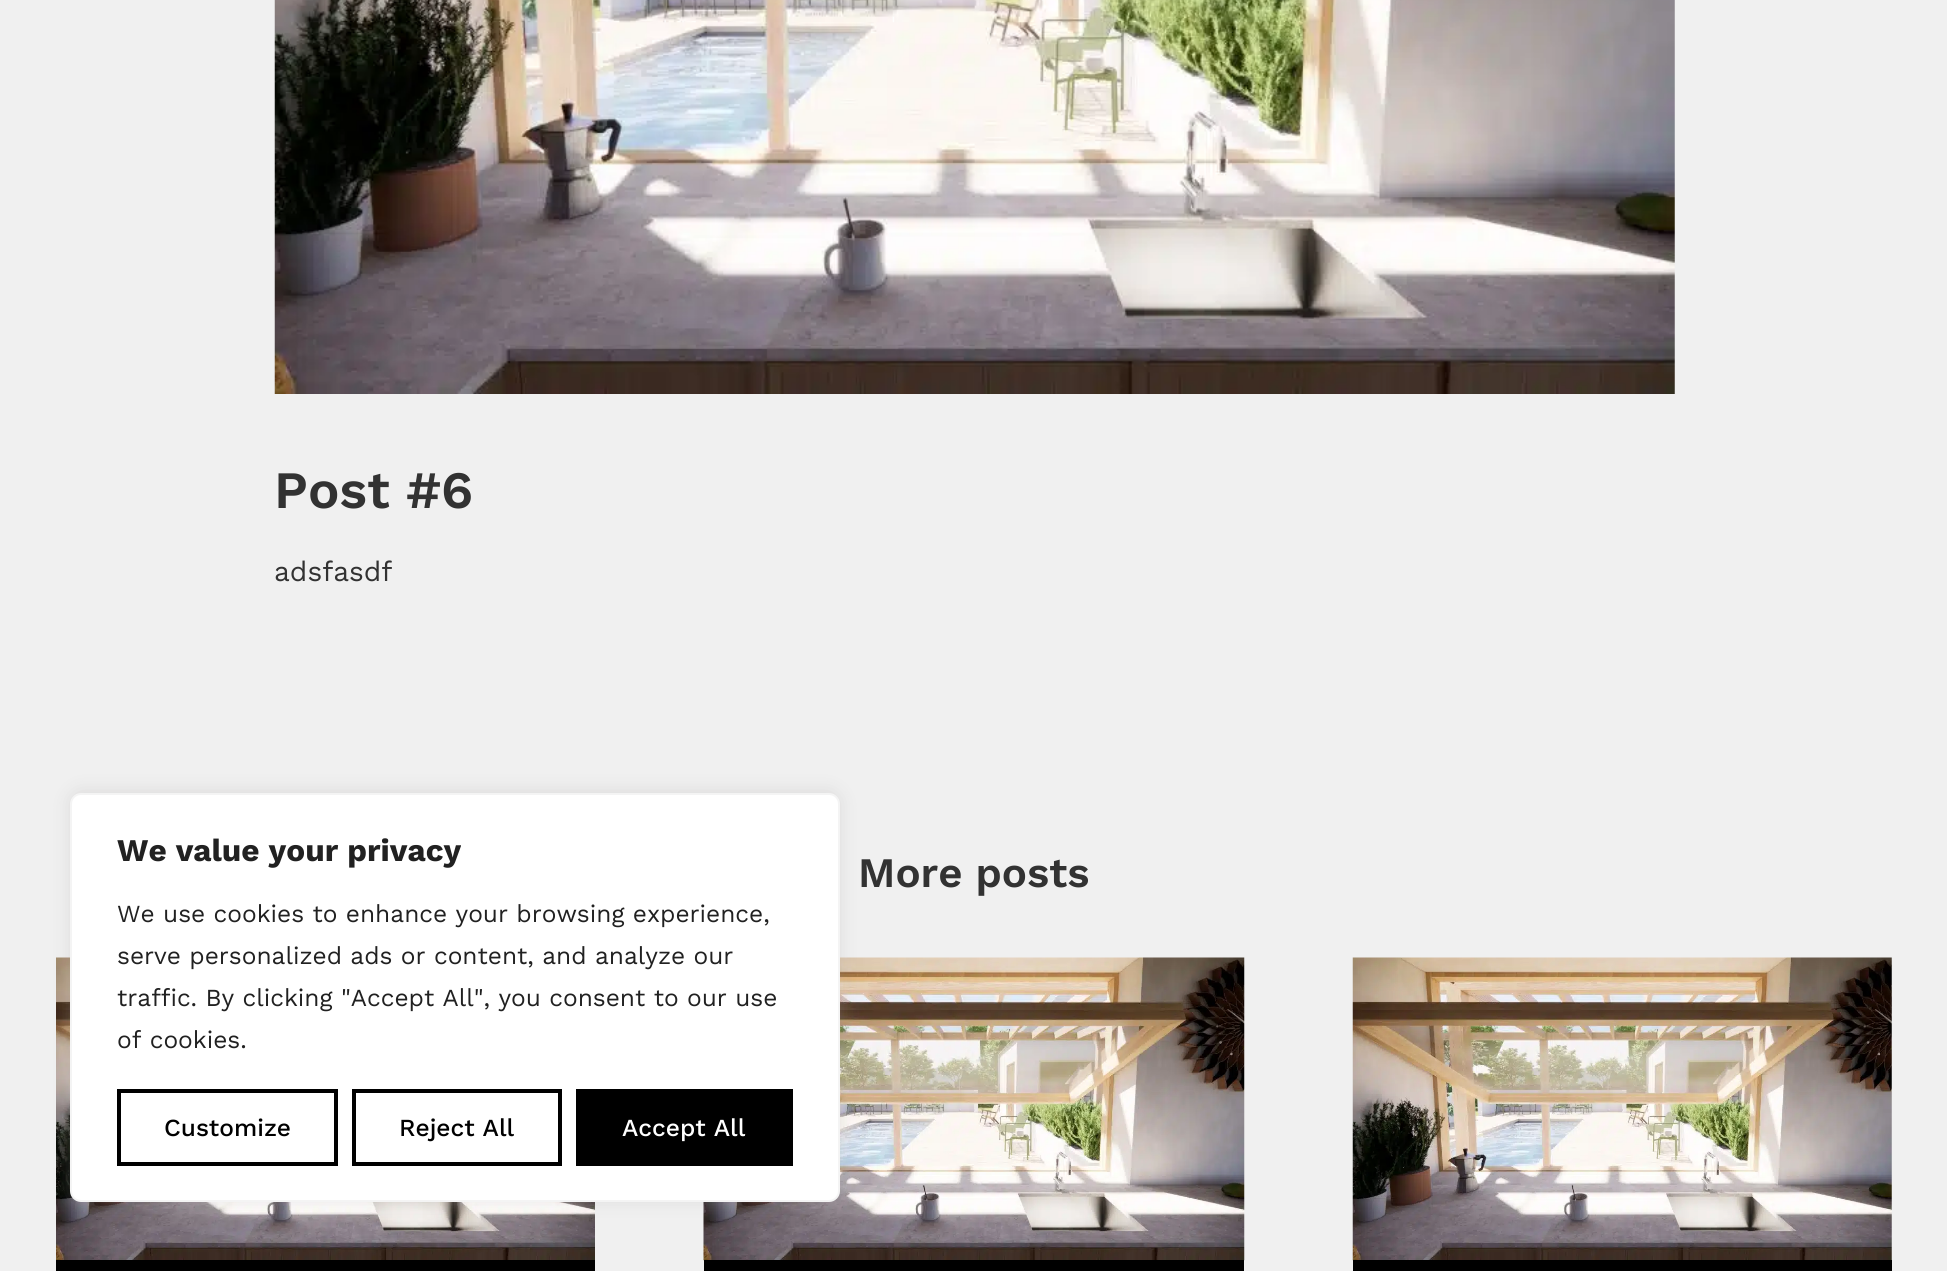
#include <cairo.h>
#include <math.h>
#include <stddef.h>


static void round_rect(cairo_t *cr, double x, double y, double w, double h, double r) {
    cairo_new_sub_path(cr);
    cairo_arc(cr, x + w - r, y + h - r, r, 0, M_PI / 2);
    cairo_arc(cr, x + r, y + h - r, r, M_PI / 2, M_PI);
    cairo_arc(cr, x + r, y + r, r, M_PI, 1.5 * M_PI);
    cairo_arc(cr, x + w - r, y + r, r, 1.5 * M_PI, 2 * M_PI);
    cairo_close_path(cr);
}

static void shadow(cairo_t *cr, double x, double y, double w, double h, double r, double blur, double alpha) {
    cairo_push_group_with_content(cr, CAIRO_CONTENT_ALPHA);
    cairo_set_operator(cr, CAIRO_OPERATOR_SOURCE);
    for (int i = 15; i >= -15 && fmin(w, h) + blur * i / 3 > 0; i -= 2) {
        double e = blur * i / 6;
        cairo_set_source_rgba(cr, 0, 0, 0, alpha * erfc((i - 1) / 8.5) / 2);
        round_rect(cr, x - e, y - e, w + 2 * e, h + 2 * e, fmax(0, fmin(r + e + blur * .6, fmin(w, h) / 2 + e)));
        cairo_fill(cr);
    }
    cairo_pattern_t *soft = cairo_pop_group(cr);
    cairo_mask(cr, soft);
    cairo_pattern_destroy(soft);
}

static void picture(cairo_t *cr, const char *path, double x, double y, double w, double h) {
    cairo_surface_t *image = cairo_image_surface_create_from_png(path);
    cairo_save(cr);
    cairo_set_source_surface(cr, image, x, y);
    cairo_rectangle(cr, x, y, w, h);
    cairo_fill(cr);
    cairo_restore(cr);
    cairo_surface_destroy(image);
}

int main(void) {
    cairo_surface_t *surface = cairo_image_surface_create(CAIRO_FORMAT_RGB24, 1947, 1271);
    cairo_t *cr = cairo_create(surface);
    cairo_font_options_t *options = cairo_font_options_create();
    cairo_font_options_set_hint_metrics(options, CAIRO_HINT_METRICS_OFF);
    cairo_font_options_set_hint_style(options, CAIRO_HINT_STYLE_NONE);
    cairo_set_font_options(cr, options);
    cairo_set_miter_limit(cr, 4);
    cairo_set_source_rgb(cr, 0.941, 0.941, 0.941);
    cairo_paint(cr);
    picture(cr, "img1.png", 274, 0, 1401, 394);
    cairo_select_font_face(cr, "Work Sans SemiBold", CAIRO_FONT_SLANT_NORMAL, CAIRO_FONT_WEIGHT_NORMAL);
    cairo_set_font_size(cr, 52.5);
    cairo_set_source_rgb(cr, 0.196, 0.196, 0.196);
    cairo_move_to(cr, 274, 508);
    cairo_show_text(cr, "Post #6");
    cairo_select_font_face(cr, "Work Sans", CAIRO_FONT_SLANT_NORMAL, CAIRO_FONT_WEIGHT_NORMAL);
    cairo_set_font_size(cr, 28);
    cairo_move_to(cr, 274, 581);
    cairo_show_text(cr, "adsfasdf");
    cairo_select_font_face(cr, "Work Sans SemiBold", CAIRO_FONT_SLANT_NORMAL, CAIRO_FONT_WEIGHT_NORMAL);
    cairo_set_font_size(cr, 42);
    cairo_move_to(cr, 858, 887);
    cairo_show_text(cr, "More posts");
    picture(cr, "img2.png", 56, 957, 539, 303);
    cairo_set_source_rgb(cr, 0, 0, 0);
    cairo_rectangle(cr, 56, 1260, 539, 11);
    cairo_fill(cr);
    picture(cr, "img3.png", 703, 957, 542, 304);
    cairo_rectangle(cr, 704, 1260, 540, 11);
    cairo_fill(cr);
    picture(cr, "img4.png", 1352, 957, 540, 304);
    cairo_rectangle(cr, 1353, 1260, 539, 11);
    cairo_fill(cr);
    cairo_set_source_rgb(cr, 0.675, 0.671, 0.671);
    shadow(cr, 70, 791, 770, 410, 11, 9, 0.3);
    cairo_set_source_rgb(cr, 1, 1, 1);
    round_rect(cr, 71, 794, 768, 407, 10);
    cairo_fill_preserve(cr);
    cairo_set_source_rgb(cr, 0.957, 0.957, 0.957);
    cairo_stroke(cr);
    cairo_select_font_face(cr, "Work Sans", CAIRO_FONT_SLANT_NORMAL, CAIRO_FONT_WEIGHT_BOLD);
    cairo_set_font_size(cr, 31.5);
    cairo_set_source_rgb(cr, 0.129, 0.129, 0.129);
    cairo_move_to(cr, 117, 861);
    cairo_show_text(cr, "We value your privacy");
    cairo_select_font_face(cr, "Work Sans", CAIRO_FONT_SLANT_NORMAL, CAIRO_FONT_WEIGHT_NORMAL);
    cairo_set_font_size(cr, 24.5);
    cairo_move_to(cr, 117, 922);
    cairo_show_text(cr, "We use cookies to enhance your browsing experience,");
    cairo_move_to(cr, 117, 964);
    cairo_show_text(cr, "serve personalized ads or content, and analyze our");
    cairo_move_to(cr, 117, 1006);
    cairo_show_text(cr, "traffic. By clicking \"Accept All\", you consent to our use");
    cairo_move_to(cr, 117, 1048);
    cairo_show_text(cr, "of cookies.");
    cairo_rectangle(cr, 119, 1091, 217, 73);
    cairo_set_source_rgb(cr, 0, 0, 0);
    cairo_set_line_width(cr, 4);
    cairo_stroke(cr);
    cairo_select_font_face(cr, "Work Sans Medium", CAIRO_FONT_SLANT_NORMAL, CAIRO_FONT_WEIGHT_NORMAL);
    cairo_move_to(cr, 164, 1136);
    cairo_show_text(cr, "Customize");
    cairo_rectangle(cr, 354, 1091, 206, 73);
    cairo_stroke(cr);
    cairo_move_to(cr, 399, 1136);
    cairo_show_text(cr, "Reject All");
    cairo_rectangle(cr, 576, 1089, 217, 77);
    cairo_fill(cr);
    cairo_set_source_rgb(cr, 1, 1, 1);
    cairo_move_to(cr, 622, 1136);
    cairo_show_text(cr, "Accept All");
    cairo_surface_write_to_png(surface, "page.png");
    cairo_font_options_destroy(options);
    cairo_destroy(cr);
    cairo_surface_destroy(surface);
    return 0;
}
